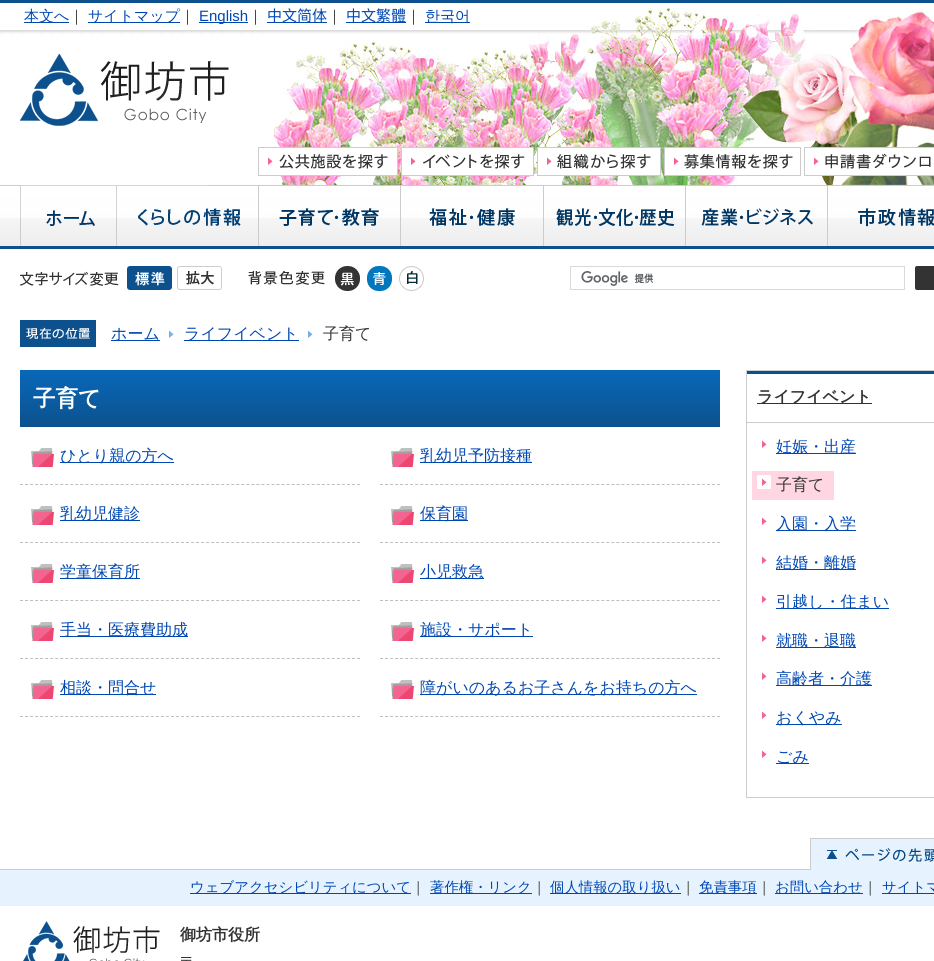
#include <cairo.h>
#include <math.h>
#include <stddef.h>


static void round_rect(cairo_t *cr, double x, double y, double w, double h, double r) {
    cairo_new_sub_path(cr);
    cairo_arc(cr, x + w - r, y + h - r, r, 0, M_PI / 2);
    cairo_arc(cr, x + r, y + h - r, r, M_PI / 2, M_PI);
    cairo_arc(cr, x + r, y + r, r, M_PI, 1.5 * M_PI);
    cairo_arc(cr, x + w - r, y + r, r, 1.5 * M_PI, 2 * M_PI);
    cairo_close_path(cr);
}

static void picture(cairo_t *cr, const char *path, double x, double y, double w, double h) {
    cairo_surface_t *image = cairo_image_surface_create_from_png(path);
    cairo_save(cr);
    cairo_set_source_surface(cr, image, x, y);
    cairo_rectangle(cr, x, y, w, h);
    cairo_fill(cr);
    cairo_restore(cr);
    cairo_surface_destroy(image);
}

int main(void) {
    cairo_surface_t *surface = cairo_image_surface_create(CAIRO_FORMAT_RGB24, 934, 961);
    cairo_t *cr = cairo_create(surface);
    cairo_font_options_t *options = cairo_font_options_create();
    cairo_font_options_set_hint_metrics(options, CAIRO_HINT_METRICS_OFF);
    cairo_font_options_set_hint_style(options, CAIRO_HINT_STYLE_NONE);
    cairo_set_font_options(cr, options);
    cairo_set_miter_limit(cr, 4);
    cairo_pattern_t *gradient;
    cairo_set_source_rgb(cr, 1, 1, 1);
    cairo_paint(cr);
    picture(cr, "img1.png", 0, 0, 934, 249);
    picture(cr, "img2.png", 266, 8, 668, 177);
    cairo_set_source_rgb(cr, 0, 0.278, 0.698);
    cairo_rectangle(cr, 24, 22, 45, 1);
    cairo_fill(cr);
    cairo_select_font_face(cr, "WenQuanYi Zen Hei Medium", CAIRO_FONT_SLANT_NORMAL, CAIRO_FONT_WEIGHT_NORMAL);
    cairo_set_font_size(cr, 15);
    cairo_move_to(cr, 24, 21);
    cairo_show_text(cr, "本文へ");
    cairo_set_source_rgb(cr, 0.2, 0.2, 0.2);
    cairo_move_to(cr, 69, 21);
    cairo_show_text(cr, "｜");
    cairo_set_source_rgb(cr, 0, 0.278, 0.698);
    cairo_rectangle(cr, 88, 22, 92, 1);
    cairo_fill(cr);
    cairo_move_to(cr, 88, 21);
    cairo_show_text(cr, "サイトマップ");
    cairo_set_source_rgb(cr, 0.2, 0.2, 0.2);
    cairo_move_to(cr, 180, 21);
    cairo_show_text(cr, "｜");
    cairo_set_source_rgb(cr, 0, 0.278, 0.698);
    cairo_rectangle(cr, 199, 22, 49, 1);
    cairo_fill(cr);
    cairo_select_font_face(cr, "Liberation Sans", CAIRO_FONT_SLANT_NORMAL, CAIRO_FONT_WEIGHT_NORMAL);
    cairo_move_to(cr, 199, 21);
    cairo_show_text(cr, "English");
    cairo_select_font_face(cr, "WenQuanYi Zen Hei Medium", CAIRO_FONT_SLANT_NORMAL, CAIRO_FONT_WEIGHT_NORMAL);
    cairo_set_source_rgb(cr, 0.2, 0.2, 0.2);
    cairo_move_to(cr, 248, 21);
    cairo_show_text(cr, "｜");
    cairo_set_source_rgb(cr, 0, 0.278, 0.698);
    cairo_rectangle(cr, 267, 22, 60, 1);
    cairo_fill(cr);
    cairo_select_font_face(cr, "Noto Sans CJK SC", CAIRO_FONT_SLANT_NORMAL, CAIRO_FONT_WEIGHT_NORMAL);
    cairo_move_to(cr, 267, 21);
    cairo_show_text(cr, "中文简体");
    cairo_select_font_face(cr, "WenQuanYi Zen Hei Medium", CAIRO_FONT_SLANT_NORMAL, CAIRO_FONT_WEIGHT_NORMAL);
    cairo_set_source_rgb(cr, 0.2, 0.2, 0.2);
    cairo_move_to(cr, 327, 21);
    cairo_show_text(cr, "｜");
    cairo_set_source_rgb(cr, 0, 0.278, 0.698);
    cairo_rectangle(cr, 346, 22, 60, 1);
    cairo_fill(cr);
    cairo_select_font_face(cr, "Noto Sans CJK SC", CAIRO_FONT_SLANT_NORMAL, CAIRO_FONT_WEIGHT_NORMAL);
    cairo_move_to(cr, 346, 21);
    cairo_show_text(cr, "中文繁體");
    cairo_select_font_face(cr, "WenQuanYi Zen Hei Medium", CAIRO_FONT_SLANT_NORMAL, CAIRO_FONT_WEIGHT_NORMAL);
    cairo_set_source_rgb(cr, 0.2, 0.2, 0.2);
    cairo_move_to(cr, 406, 21);
    cairo_show_text(cr, "｜");
    cairo_set_source_rgb(cr, 0, 0.278, 0.698);
    cairo_rectangle(cr, 425, 22, 45, 1);
    cairo_fill(cr);
    cairo_move_to(cr, 425, 21);
    cairo_show_text(cr, "한국어");
    picture(cr, "img3.png", 20, 54, 209, 72);
    picture(cr, "img4.png", 258, 147, 140, 29);
    picture(cr, "img5.png", 401, 147, 133, 29);
    picture(cr, "img6.png", 537, 147, 124, 29);
    picture(cr, "img7.png", 664, 147, 137, 29);
    picture(cr, "img8.png", 804, 147, 130, 29);
    picture(cr, "img9.png", 20, 185, 97, 61);
    picture(cr, "img10.png", 117, 185, 142, 61);
    picture(cr, "img11.png", 279, 186, 122, 60);
    picture(cr, "img12.png", 429, 186, 115, 60);
    picture(cr, "img13.png", 556, 186, 130, 60);
    picture(cr, "img14.png", 701, 186, 127, 60);
    picture(cr, "img15.png", 858, 208, 76, 19);
    picture(cr, "img16.png", 20, 271, 99, 15);
    picture(cr, "img17.png", 127, 266, 45, 24);
    picture(cr, "img18.png", 177, 266, 45, 24);
    picture(cr, "img19.png", 248, 271, 77, 14);
    picture(cr, "img20.png", 335, 266, 25, 25);
    picture(cr, "img21.png", 367, 266, 25, 25);
    picture(cr, "img22.png", 399, 266, 25, 25);
    cairo_rectangle(cr, 570.5, 266.5, 334, 23);
    cairo_set_source_rgb(cr, 0.851, 0.851, 0.851);
    cairo_set_line_width(cr, 1);
    cairo_stroke(cr);
    picture(cr, "img23.png", 581, 271, 73, 15);
    cairo_set_source_rgb(cr, 0.2, 0.2, 0.2);
    round_rect(cr, 915, 266, 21, 24, 2);
    cairo_fill(cr);
    picture(cr, "img24.png", 20, 320, 76, 27);
    cairo_set_source_rgb(cr, 0, 0.278, 0.698);
    cairo_rectangle(cr, 111, 340, 49, 1);
    cairo_fill(cr);
    cairo_set_font_size(cr, 16);
    cairo_move_to(cr, 111, 339);
    cairo_show_text(cr, "ホーム");
    picture(cr, "img25.png", 169, 330, 5, 8);
    cairo_rectangle(cr, 184, 340, 115, 1);
    cairo_fill(cr);
    cairo_move_to(cr, 184, 339);
    cairo_show_text(cr, "ライフイベント");
    picture(cr, "img25.png", 308, 330, 5, 8);
    cairo_set_source_rgb(cr, 0.2, 0.2, 0.2);
    cairo_move_to(cr, 323, 339);
    cairo_show_text(cr, "子育て");
    gradient = cairo_pattern_create_linear(370, 427, 370, 370);
    cairo_pattern_add_color_stop_rgba(gradient, 0, 0.047, 0.318, 0.553, 1);
    cairo_pattern_add_color_stop_rgba(gradient, 1, 0.035, 0.408, 0.725, 1);
    cairo_set_source(cr, gradient);
    cairo_pattern_destroy(gradient);
    cairo_rectangle(cr, 20, 370, 700, 57);
    cairo_fill(cr);
    cairo_select_font_face(cr, "WenQuanYi Zen Hei", CAIRO_FONT_SLANT_NORMAL, CAIRO_FONT_WEIGHT_BOLD);
    cairo_set_font_size(cr, 22.5);
    cairo_set_source_rgb(cr, 1, 1, 1);
    cairo_move_to(cr, 33, 406);
    cairo_show_text(cr, "子育て");
    picture(cr, "img26.png", 31, 448, 23, 19);
    cairo_new_path(cr);
    cairo_move_to(cr, 20, 484.5);
    cairo_line_to(cr, 360, 484.5);
    cairo_set_source_rgb(cr, 0.749, 0.749, 0.749);
    cairo_set_dash(cr, (double[]){3, 2.03}, 2, 0);
    cairo_stroke(cr);
    cairo_set_source_rgb(cr, 0, 0.278, 0.698);
    cairo_rectangle(cr, 60, 462, 114, 1);
    cairo_fill(cr);
    cairo_select_font_face(cr, "WenQuanYi Zen Hei Medium", CAIRO_FONT_SLANT_NORMAL, CAIRO_FONT_WEIGHT_NORMAL);
    cairo_set_font_size(cr, 16);
    cairo_move_to(cr, 60, 461);
    cairo_show_text(cr, "ひとり親の方へ");
    picture(cr, "img26.png", 391, 448, 23, 19);
    cairo_new_path(cr);
    cairo_move_to(cr, 380, 484.5);
    cairo_line_to(cr, 720, 484.5);
    cairo_set_source_rgb(cr, 0.749, 0.749, 0.749);
    cairo_stroke(cr);
    cairo_set_source_rgb(cr, 0, 0.278, 0.698);
    cairo_rectangle(cr, 420, 462, 112, 1);
    cairo_fill(cr);
    cairo_move_to(cr, 420, 461);
    cairo_show_text(cr, "乳幼児予防接種");
    picture(cr, "img26.png", 31, 506, 23, 19);
    cairo_new_path(cr);
    cairo_move_to(cr, 20, 542.5);
    cairo_line_to(cr, 360, 542.5);
    cairo_set_source_rgb(cr, 0.749, 0.749, 0.749);
    cairo_stroke(cr);
    cairo_set_source_rgb(cr, 0, 0.278, 0.698);
    cairo_rectangle(cr, 60, 520, 80, 1);
    cairo_fill(cr);
    cairo_move_to(cr, 60, 519);
    cairo_show_text(cr, "乳幼児健診");
    picture(cr, "img26.png", 391, 506, 23, 19);
    cairo_new_path(cr);
    cairo_move_to(cr, 380, 542.5);
    cairo_line_to(cr, 720, 542.5);
    cairo_set_source_rgb(cr, 0.749, 0.749, 0.749);
    cairo_stroke(cr);
    cairo_set_source_rgb(cr, 0, 0.278, 0.698);
    cairo_rectangle(cr, 420, 520, 48, 1);
    cairo_fill(cr);
    cairo_move_to(cr, 420, 519);
    cairo_show_text(cr, "保育園");
    picture(cr, "img26.png", 31, 564, 23, 19);
    cairo_new_path(cr);
    cairo_move_to(cr, 20, 600.5);
    cairo_line_to(cr, 360, 600.5);
    cairo_set_source_rgb(cr, 0.749, 0.749, 0.749);
    cairo_stroke(cr);
    cairo_set_source_rgb(cr, 0, 0.278, 0.698);
    cairo_rectangle(cr, 60, 578, 80, 1);
    cairo_fill(cr);
    cairo_move_to(cr, 60, 577);
    cairo_show_text(cr, "学童保育所");
    picture(cr, "img26.png", 391, 564, 23, 19);
    cairo_new_path(cr);
    cairo_move_to(cr, 380, 600.5);
    cairo_line_to(cr, 720, 600.5);
    cairo_set_source_rgb(cr, 0.749, 0.749, 0.749);
    cairo_stroke(cr);
    cairo_set_source_rgb(cr, 0, 0.278, 0.698);
    cairo_rectangle(cr, 420, 578, 64, 1);
    cairo_fill(cr);
    cairo_move_to(cr, 420, 577);
    cairo_show_text(cr, "小児救急");
    picture(cr, "img26.png", 31, 622, 23, 19);
    cairo_new_path(cr);
    cairo_move_to(cr, 20, 658.5);
    cairo_line_to(cr, 360, 658.5);
    cairo_set_source_rgb(cr, 0.749, 0.749, 0.749);
    cairo_stroke(cr);
    cairo_set_source_rgb(cr, 0, 0.278, 0.698);
    cairo_rectangle(cr, 60, 636, 128, 1);
    cairo_fill(cr);
    cairo_move_to(cr, 60, 635);
    cairo_show_text(cr, "手当・医療費助成");
    picture(cr, "img26.png", 391, 622, 23, 19);
    cairo_new_path(cr);
    cairo_move_to(cr, 380, 658.5);
    cairo_line_to(cr, 720, 658.5);
    cairo_set_source_rgb(cr, 0.749, 0.749, 0.749);
    cairo_stroke(cr);
    cairo_set_source_rgb(cr, 0, 0.278, 0.698);
    cairo_rectangle(cr, 420, 636, 113, 1);
    cairo_fill(cr);
    cairo_move_to(cr, 420, 635);
    cairo_show_text(cr, "施設・サポート");
    picture(cr, "img26.png", 31, 680, 23, 19);
    cairo_new_path(cr);
    cairo_move_to(cr, 20, 716.5);
    cairo_line_to(cr, 360, 716.5);
    cairo_set_source_rgb(cr, 0.749, 0.749, 0.749);
    cairo_stroke(cr);
    cairo_set_source_rgb(cr, 0, 0.278, 0.698);
    cairo_rectangle(cr, 60, 694, 96, 1);
    cairo_fill(cr);
    cairo_move_to(cr, 60, 693);
    cairo_show_text(cr, "相談・問合せ");
    picture(cr, "img26.png", 391, 680, 23, 19);
    cairo_new_path(cr);
    cairo_move_to(cr, 380, 716.5);
    cairo_line_to(cr, 720, 716.5);
    cairo_set_source_rgb(cr, 0.749, 0.749, 0.749);
    cairo_stroke(cr);
    cairo_set_source_rgb(cr, 0, 0.278, 0.698);
    cairo_rectangle(cr, 420, 694, 277, 1);
    cairo_fill(cr);
    cairo_move_to(cr, 420, 693);
    cairo_show_text(cr, "障がいのあるお子さんをお持ちの方へ");
    cairo_rectangle(cr, 746.5, 370.5, 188, 427);
    cairo_set_source_rgb(cr, 0.8, 0.8, 0.8);
    cairo_set_dash(cr, NULL, 0, 0);
    cairo_stroke(cr);
    cairo_set_source_rgb(cr, 0.047, 0.318, 0.553);
    cairo_rectangle(cr, 747, 371, 187, 3);
    cairo_fill(cr);
    cairo_set_source_rgb(cr, 0.8, 0.8, 0.8);
    cairo_rectangle(cr, 747, 422, 187, 1);
    cairo_fill(cr);
    cairo_set_source_rgb(cr, 0.2, 0.2, 0.2);
    cairo_rectangle(cr, 757, 403, 115, 1);
    cairo_fill(cr);
    cairo_select_font_face(cr, "WenQuanYi Zen Hei", CAIRO_FONT_SLANT_NORMAL, CAIRO_FONT_WEIGHT_BOLD);
    cairo_move_to(cr, 757, 402);
    cairo_show_text(cr, "ライフイベント");
    picture(cr, "img27.png", 762, 440, 5, 8);
    cairo_set_source_rgb(cr, 0, 0.278, 0.698);
    cairo_rectangle(cr, 776, 453, 80, 1);
    cairo_fill(cr);
    cairo_select_font_face(cr, "WenQuanYi Zen Hei Medium", CAIRO_FONT_SLANT_NORMAL, CAIRO_FONT_WEIGHT_NORMAL);
    cairo_move_to(cr, 776, 452);
    cairo_show_text(cr, "妊娠・出産");
    cairo_set_source_rgb(cr, 1, 0.839, 0.886);
    cairo_rectangle(cr, 752, 471, 82, 29);
    cairo_fill(cr);
    picture(cr, "img28.png", 757, 475, 14, 14);
    cairo_set_source_rgb(cr, 0.2, 0.2, 0.2);
    cairo_move_to(cr, 776, 490);
    cairo_show_text(cr, "子育て");
    picture(cr, "img27.png", 762, 517, 5, 8);
    cairo_set_source_rgb(cr, 0, 0.278, 0.698);
    cairo_rectangle(cr, 776, 530, 80, 1);
    cairo_fill(cr);
    cairo_move_to(cr, 776, 529);
    cairo_show_text(cr, "入園・入学");
    picture(cr, "img27.png", 762, 556, 5, 8);
    cairo_rectangle(cr, 776, 569, 80, 1);
    cairo_fill(cr);
    cairo_move_to(cr, 776, 568);
    cairo_show_text(cr, "結婚・離婚");
    picture(cr, "img27.png", 762, 595, 5, 8);
    cairo_rectangle(cr, 776, 608, 113, 1);
    cairo_fill(cr);
    cairo_move_to(cr, 776, 607);
    cairo_show_text(cr, "引越し・住まい");
    picture(cr, "img27.png", 762, 634, 5, 8);
    cairo_rectangle(cr, 776, 647, 80, 1);
    cairo_fill(cr);
    cairo_move_to(cr, 776, 646);
    cairo_show_text(cr, "就職・退職");
    picture(cr, "img27.png", 762, 672, 5, 8);
    cairo_rectangle(cr, 776, 685, 96, 1);
    cairo_fill(cr);
    cairo_move_to(cr, 776, 684);
    cairo_show_text(cr, "高齢者・介護");
    picture(cr, "img27.png", 762, 711, 5, 8);
    cairo_rectangle(cr, 776, 724, 66, 1);
    cairo_fill(cr);
    cairo_move_to(cr, 776, 723);
    cairo_show_text(cr, "おくやみ");
    picture(cr, "img27.png", 762, 750, 5, 8);
    cairo_rectangle(cr, 776, 763, 33, 1);
    cairo_fill(cr);
    cairo_move_to(cr, 776, 762);
    cairo_show_text(cr, "ごみ");
    cairo_set_source_rgb(cr, 0.8, 0.8, 0.8);
    cairo_rectangle(cr, 0, 869, 810, 1);
    cairo_fill(cr);
    picture(cr, "img29.png", 810, 838, 124, 32);
    cairo_set_source_rgb(cr, 0.902, 0.953, 1);
    cairo_rectangle(cr, 0, 870, 934, 36);
    cairo_fill(cr);
    cairo_set_source_rgb(cr, 0, 0.278, 0.698);
    cairo_rectangle(cr, 190, 893, 221, 1);
    cairo_fill(cr);
    cairo_set_font_size(cr, 14.4);
    cairo_move_to(cr, 190, 892);
    cairo_show_text(cr, "ウェブアクセシビリティについて");
    cairo_set_source_rgb(cr, 0.2, 0.2, 0.2);
    cairo_move_to(cr, 411, 892);
    cairo_show_text(cr, "｜");
    cairo_set_source_rgb(cr, 0, 0.278, 0.698);
    cairo_rectangle(cr, 430, 893, 102, 1);
    cairo_fill(cr);
    cairo_move_to(cr, 430, 892);
    cairo_show_text(cr, "著作権・リンク");
    cairo_set_source_rgb(cr, 0.2, 0.2, 0.2);
    cairo_move_to(cr, 532, 892);
    cairo_show_text(cr, "｜");
    cairo_set_source_rgb(cr, 0, 0.278, 0.698);
    cairo_rectangle(cr, 550, 893, 131, 1);
    cairo_fill(cr);
    cairo_move_to(cr, 550, 892);
    cairo_show_text(cr, "個人情報の取り扱い");
    cairo_set_source_rgb(cr, 0.2, 0.2, 0.2);
    cairo_move_to(cr, 681, 892);
    cairo_show_text(cr, "｜");
    cairo_set_source_rgb(cr, 0, 0.278, 0.698);
    cairo_rectangle(cr, 699, 893, 58, 1);
    cairo_fill(cr);
    cairo_move_to(cr, 699, 892);
    cairo_show_text(cr, "免責事項");
    cairo_set_source_rgb(cr, 0.2, 0.2, 0.2);
    cairo_move_to(cr, 757, 892);
    cairo_show_text(cr, "｜");
    cairo_set_source_rgb(cr, 0, 0.278, 0.698);
    cairo_rectangle(cr, 775, 893, 88, 1);
    cairo_fill(cr);
    cairo_move_to(cr, 775, 892);
    cairo_show_text(cr, "お問い合わせ");
    cairo_set_source_rgb(cr, 0.2, 0.2, 0.2);
    cairo_move_to(cr, 863, 892);
    cairo_show_text(cr, "｜");
    cairo_set_source_rgb(cr, 0, 0.278, 0.698);
    cairo_rectangle(cr, 882, 893, 52, 1);
    cairo_fill(cr);
    cairo_move_to(cr, 882, 892);
    cairo_show_text(cr, "サイトマ");
    picture(cr, "img30.png", 23, 921, 137, 40);
    cairo_select_font_face(cr, "WenQuanYi Zen Hei", CAIRO_FONT_SLANT_NORMAL, CAIRO_FONT_WEIGHT_BOLD);
    cairo_set_font_size(cr, 16);
    cairo_set_source_rgb(cr, 0.2, 0.2, 0.2);
    cairo_move_to(cr, 180, 940);
    cairo_show_text(cr, "御坊市役所");
    cairo_select_font_face(cr, "WenQuanYi Zen Hei Medium", CAIRO_FONT_SLANT_NORMAL, CAIRO_FONT_WEIGHT_NORMAL);
    cairo_move_to(cr, 180, 968);
    cairo_show_text(cr, "〒");
    cairo_surface_write_to_png(surface, "page.png");
    cairo_font_options_destroy(options);
    cairo_destroy(cr);
    cairo_surface_destroy(surface);
    return 0;
}
